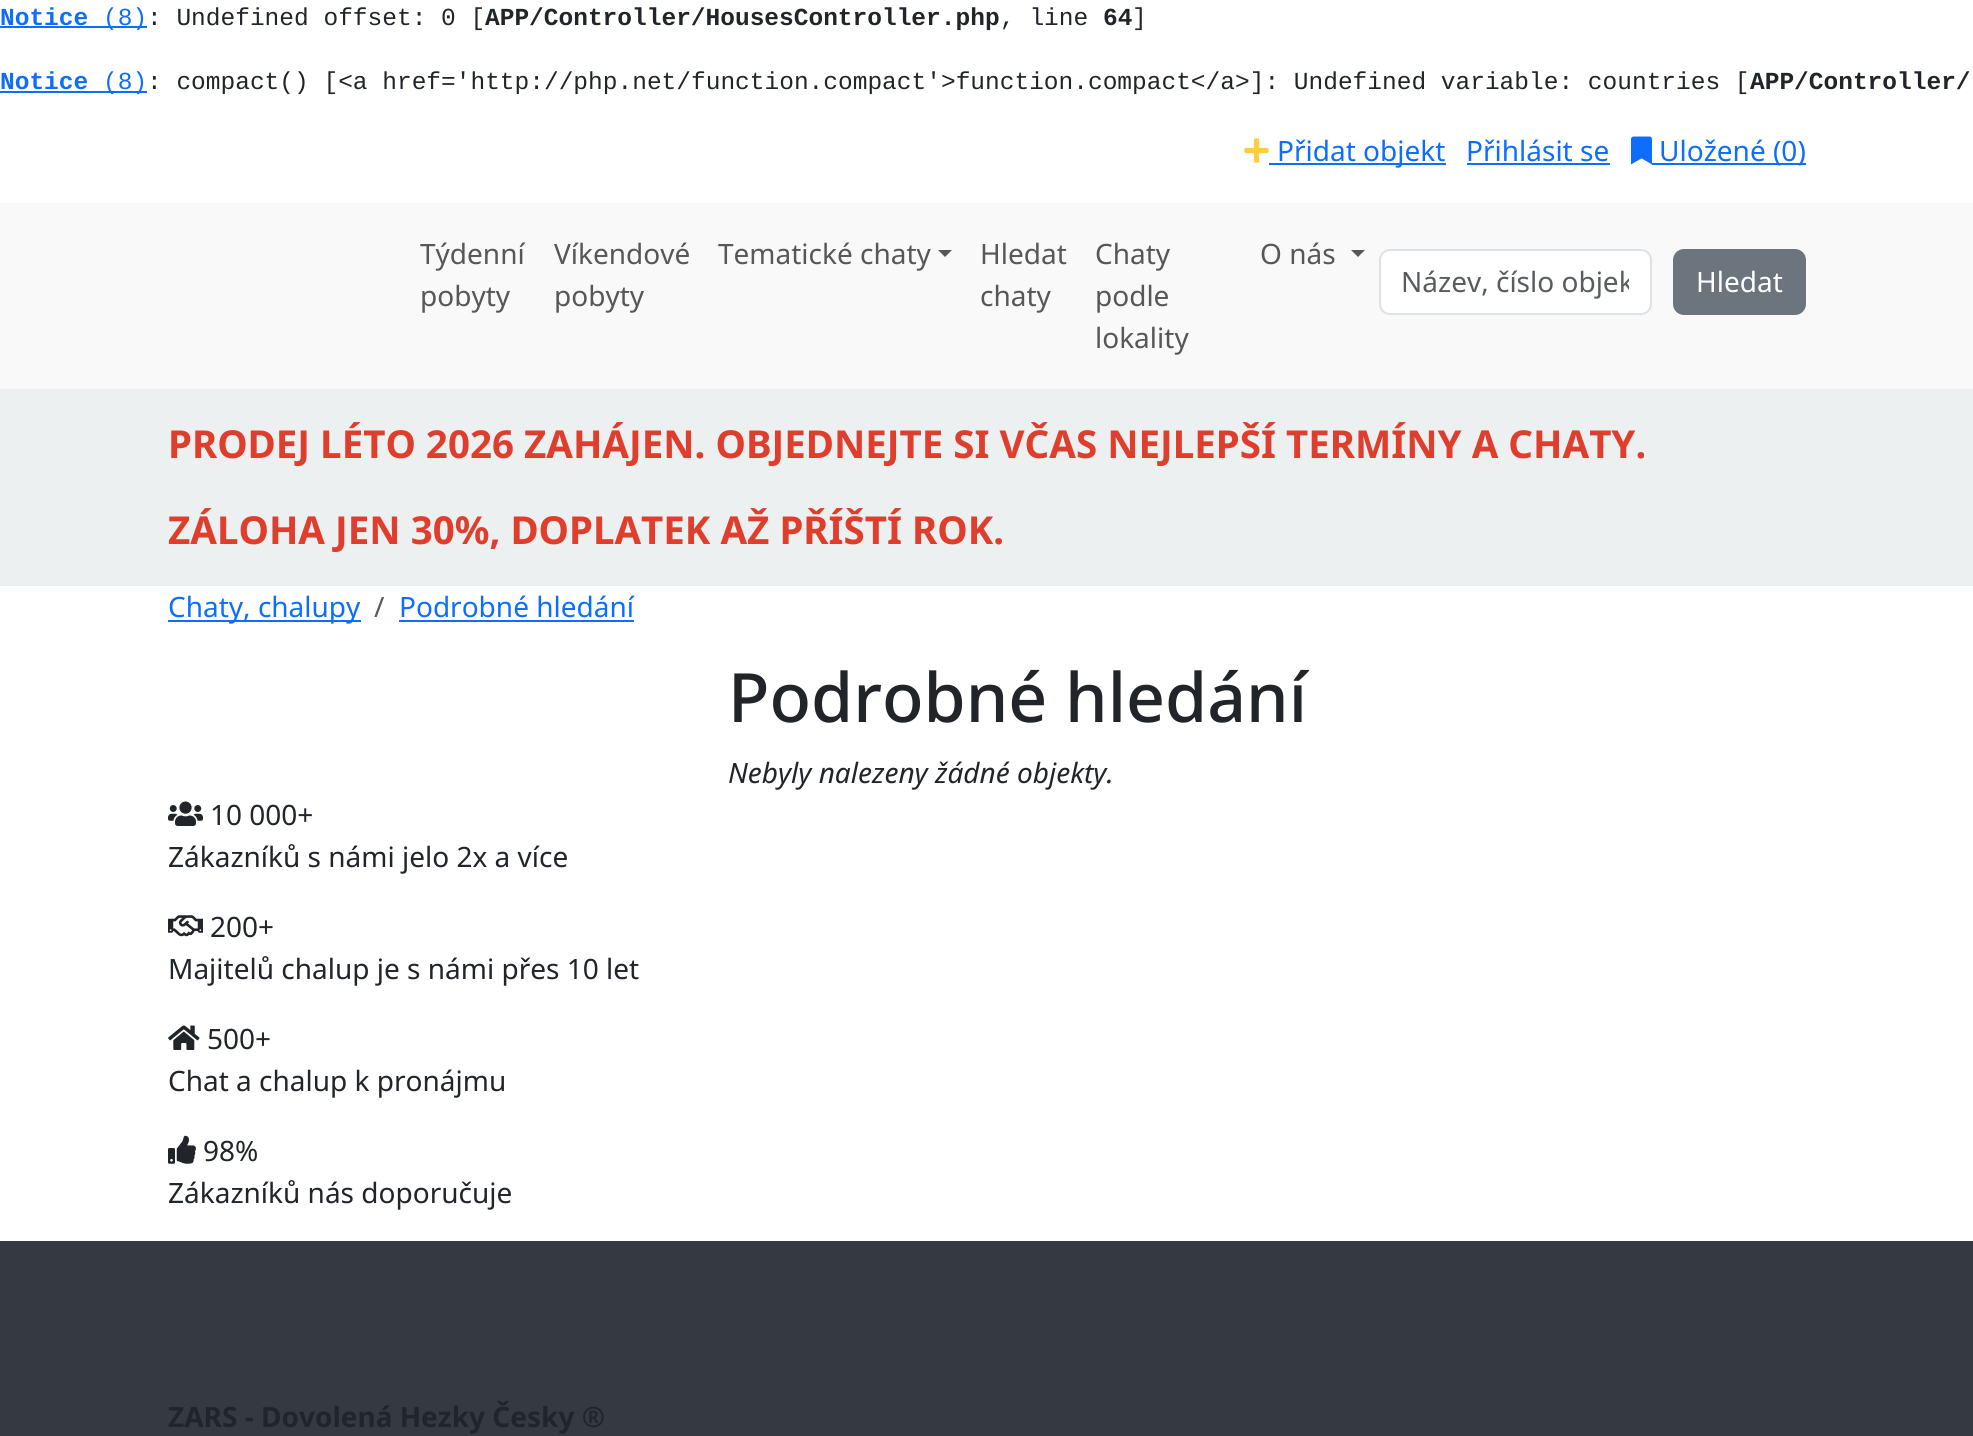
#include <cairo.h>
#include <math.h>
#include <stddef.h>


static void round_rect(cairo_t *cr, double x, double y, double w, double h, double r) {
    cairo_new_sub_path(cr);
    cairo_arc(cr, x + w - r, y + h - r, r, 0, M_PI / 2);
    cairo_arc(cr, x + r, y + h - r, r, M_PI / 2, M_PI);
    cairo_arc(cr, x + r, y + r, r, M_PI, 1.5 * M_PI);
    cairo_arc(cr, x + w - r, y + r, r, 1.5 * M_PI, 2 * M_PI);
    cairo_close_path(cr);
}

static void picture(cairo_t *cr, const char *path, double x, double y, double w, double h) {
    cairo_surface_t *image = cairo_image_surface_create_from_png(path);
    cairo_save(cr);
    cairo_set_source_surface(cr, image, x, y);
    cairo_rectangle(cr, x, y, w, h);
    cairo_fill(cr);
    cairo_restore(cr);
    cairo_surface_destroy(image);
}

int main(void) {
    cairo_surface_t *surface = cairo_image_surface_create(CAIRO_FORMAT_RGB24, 1973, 1436);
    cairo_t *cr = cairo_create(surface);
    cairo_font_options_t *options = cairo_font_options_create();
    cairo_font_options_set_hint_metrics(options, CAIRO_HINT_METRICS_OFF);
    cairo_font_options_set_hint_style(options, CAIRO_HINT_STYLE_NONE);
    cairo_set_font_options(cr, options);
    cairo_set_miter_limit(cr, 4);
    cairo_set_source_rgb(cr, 1, 1, 1);
    cairo_paint(cr);
    cairo_select_font_face(cr, "Liberation Mono", CAIRO_FONT_SLANT_NORMAL, CAIRO_FONT_WEIGHT_BOLD);
    cairo_set_font_size(cr, 24.5);
    cairo_set_source_rgb(cr, 0.051, 0.431, 0.992);
    cairo_move_to(cr, 0, 25);
    cairo_show_text(cr, "Notice");
    cairo_rectangle(cr, 0, 26, 147, 2);
    cairo_fill(cr);
    cairo_select_font_face(cr, "Liberation Mono", CAIRO_FONT_SLANT_NORMAL, CAIRO_FONT_WEIGHT_NORMAL);
    cairo_move_to(cr, 103, 25);
    cairo_show_text(cr, "(8)");
    cairo_set_source_rgb(cr, 0.129, 0.145, 0.161);
    cairo_move_to(cr, 147, 25);
    cairo_show_text(cr, ": Undefined offset: 0 [");
    cairo_select_font_face(cr, "Liberation Mono", CAIRO_FONT_SLANT_NORMAL, CAIRO_FONT_WEIGHT_BOLD);
    cairo_move_to(cr, 485, 25);
    cairo_show_text(cr, "APP/Controller/HousesController.php");
    cairo_select_font_face(cr, "Liberation Mono", CAIRO_FONT_SLANT_NORMAL, CAIRO_FONT_WEIGHT_NORMAL);
    cairo_move_to(cr, 1000, 25);
    cairo_show_text(cr, ", line");
    cairo_select_font_face(cr, "Liberation Mono", CAIRO_FONT_SLANT_NORMAL, CAIRO_FONT_WEIGHT_BOLD);
    cairo_move_to(cr, 1103, 25);
    cairo_show_text(cr, "64");
    cairo_select_font_face(cr, "Liberation Mono", CAIRO_FONT_SLANT_NORMAL, CAIRO_FONT_WEIGHT_NORMAL);
    cairo_move_to(cr, 1132, 25);
    cairo_show_text(cr, "]");
    cairo_select_font_face(cr, "Liberation Mono", CAIRO_FONT_SLANT_NORMAL, CAIRO_FONT_WEIGHT_BOLD);
    cairo_set_source_rgb(cr, 0.051, 0.431, 0.992);
    cairo_move_to(cr, 0, 89);
    cairo_show_text(cr, "Notice");
    cairo_rectangle(cr, 0, 91, 147, 2);
    cairo_fill(cr);
    cairo_select_font_face(cr, "Liberation Mono", CAIRO_FONT_SLANT_NORMAL, CAIRO_FONT_WEIGHT_NORMAL);
    cairo_move_to(cr, 103, 89);
    cairo_show_text(cr, "(8)");
    cairo_set_source_rgb(cr, 0.129, 0.145, 0.161);
    cairo_move_to(cr, 147, 89);
    cairo_show_text(cr, ": compact() [<a href='http://php.net/function.compact'>function.compact</a>]: Undefined variable: countries [");
    cairo_select_font_face(cr, "Liberation Mono", CAIRO_FONT_SLANT_NORMAL, CAIRO_FONT_WEIGHT_BOLD);
    cairo_move_to(cr, 1750, 89);
    cairo_show_text(cr, "APP/Controller/");
    picture(cr, "img1.png", 1244, 138, 25, 25);
    cairo_set_source_rgb(cr, 0.051, 0.431, 0.992);
    cairo_rectangle(cr, 1269, 163, 177, 2);
    cairo_fill(cr);
    cairo_select_font_face(cr, "Noto Sans", CAIRO_FONT_SLANT_NORMAL, CAIRO_FONT_WEIGHT_NORMAL);
    cairo_set_font_size(cr, 28);
    cairo_move_to(cr, 1277, 161);
    cairo_show_text(cr, "Přidat objekt");
    cairo_move_to(cr, 1466, 161);
    cairo_show_text(cr, "Přihlásit se");
    cairo_rectangle(cr, 1467, 163, 143, 2);
    cairo_fill(cr);
    picture(cr, "img2.png", 1631, 136, 21, 29);
    cairo_rectangle(cr, 1652, 163, 154, 2);
    cairo_fill(cr);
    cairo_move_to(cr, 1659, 161);
    cairo_show_text(cr, "Uložené (0)");
    cairo_set_source_rgb(cr, 0.973, 0.976, 0.98);
    cairo_rectangle(cr, 0, 203, 1973, 186);
    cairo_fill(cr);
    cairo_set_source_rgb(cr, 0.341, 0.341, 0.345);
    cairo_move_to(cr, 420, 264);
    cairo_show_text(cr, "Týdenní");
    cairo_move_to(cr, 420, 306);
    cairo_show_text(cr, "pobyty");
    cairo_move_to(cr, 554, 264);
    cairo_show_text(cr, "Víkendové");
    cairo_move_to(cr, 554, 306);
    cairo_show_text(cr, "pobyty");
    cairo_move_to(cr, 718, 264);
    cairo_show_text(cr, "Tematické chaty");
    cairo_new_path(cr);
    cairo_move_to(cr, 938, 250);
    cairo_line_to(cr, 952, 250);
    cairo_line_to(cr, 945, 257);
    cairo_close_path(cr);
    cairo_fill(cr);
    cairo_move_to(cr, 980, 264);
    cairo_show_text(cr, "Hledat");
    cairo_move_to(cr, 980, 306);
    cairo_show_text(cr, "chaty");
    cairo_move_to(cr, 1095, 264);
    cairo_show_text(cr, "Chaty");
    cairo_move_to(cr, 1095, 306);
    cairo_show_text(cr, "podle");
    cairo_move_to(cr, 1095, 348);
    cairo_show_text(cr, "lokality");
    cairo_move_to(cr, 1260, 264);
    cairo_show_text(cr, "O nás");
    cairo_new_path(cr);
    cairo_move_to(cr, 1351, 250);
    cairo_line_to(cr, 1365, 250);
    cairo_line_to(cr, 1358, 257);
    cairo_close_path(cr);
    cairo_fill(cr);
    cairo_set_source_rgb(cr, 1, 1, 1);
    round_rect(cr, 1380, 250, 271, 64, 10);
    cairo_fill_preserve(cr);
    cairo_set_source_rgb(cr, 0.871, 0.886, 0.902);
    cairo_stroke(cr);
    cairo_save(cr);
    cairo_rectangle(cr, 1402, 263, 227, 38);
    cairo_clip(cr);
    cairo_set_source_rgb(cr, 0.349, 0.361, 0.373);
    cairo_move_to(cr, 1401, 292);
    cairo_show_text(cr, "Název, číslo objek");
    cairo_restore(cr);
    cairo_set_source_rgb(cr, 0.424, 0.459, 0.49);
    round_rect(cr, 1674, 250, 131, 64, 10);
    cairo_fill_preserve(cr);
    cairo_stroke(cr);
    cairo_set_source_rgb(cr, 1, 1, 1);
    cairo_move_to(cr, 1696, 292);
    cairo_show_text(cr, "Hledat");
    cairo_set_source_rgb(cr, 0.925, 0.941, 0.945);
    cairo_rectangle(cr, 0, 389, 1973, 197);
    cairo_fill(cr);
    cairo_select_font_face(cr, "Noto Sans", CAIRO_FONT_SLANT_NORMAL, CAIRO_FONT_WEIGHT_BOLD);
    cairo_set_font_size(cr, 38.5);
    cairo_set_source_rgb(cr, 0.878, 0.243, 0.176);
    cairo_move_to(cr, 168, 458);
    cairo_show_text(cr, "PRODEJ LÉTO 2026 ZAHÁJEN. OBJEDNEJTE SI VČAS NEJLEPŠÍ TERMÍNY A CHATY.");
    cairo_move_to(cr, 168, 544);
    cairo_show_text(cr, "ZÁLOHA JEN 30%, DOPLATEK AŽ PŘÍŠTÍ ROK.");
    cairo_set_source_rgb(cr, 0.051, 0.431, 0.992);
    cairo_rectangle(cr, 168, 620, 193, 2);
    cairo_fill(cr);
    cairo_select_font_face(cr, "Noto Sans", CAIRO_FONT_SLANT_NORMAL, CAIRO_FONT_WEIGHT_NORMAL);
    cairo_set_font_size(cr, 28);
    cairo_move_to(cr, 168, 617);
    cairo_show_text(cr, "Chaty, chalupy");
    cairo_set_source_rgb(cr, 0.349, 0.361, 0.373);
    cairo_move_to(cr, 374, 617);
    cairo_show_text(cr, "/");
    cairo_set_source_rgb(cr, 0.051, 0.431, 0.992);
    cairo_move_to(cr, 399, 617);
    cairo_show_text(cr, "Podrobné hledání");
    cairo_rectangle(cr, 399, 620, 235, 2);
    cairo_fill(cr);
    cairo_select_font_face(cr, "Noto Sans Medium", CAIRO_FONT_SLANT_NORMAL, CAIRO_FONT_WEIGHT_NORMAL);
    cairo_set_font_size(cr, 68);
    cairo_set_source_rgb(cr, 0.129, 0.145, 0.161);
    cairo_move_to(cr, 728, 722);
    cairo_show_text(cr, "Podrobné hledání");
    cairo_select_font_face(cr, "Noto Sans", CAIRO_FONT_SLANT_ITALIC, CAIRO_FONT_WEIGHT_NORMAL);
    cairo_set_font_size(cr, 28);
    cairo_move_to(cr, 728, 783);
    cairo_show_text(cr, "Nebyly nalezeny žádné objekty.");
    picture(cr, "img3.png", 168, 801, 35, 25);
    cairo_select_font_face(cr, "Noto Sans", CAIRO_FONT_SLANT_NORMAL, CAIRO_FONT_WEIGHT_NORMAL);
    cairo_move_to(cr, 210, 825);
    cairo_show_text(cr, "10 000+");
    cairo_move_to(cr, 168, 867);
    cairo_show_text(cr, "Zákazníků s námi jelo 2x a více");
    picture(cr, "img4.png", 168, 915, 35, 22);
    cairo_move_to(cr, 210, 937);
    cairo_show_text(cr, "200+");
    cairo_move_to(cr, 168, 979);
    cairo_show_text(cr, "Majitelů chalup je s námi přes 10 let");
    picture(cr, "img5.png", 168, 1025, 32, 25);
    cairo_move_to(cr, 207, 1049);
    cairo_show_text(cr, "500+");
    cairo_move_to(cr, 168, 1091);
    cairo_show_text(cr, "Chat a chalup k pronájmu");
    picture(cr, "img6.png", 168, 1135, 28, 29);
    cairo_move_to(cr, 203, 1161);
    cairo_show_text(cr, "98%");
    cairo_move_to(cr, 168, 1203);
    cairo_show_text(cr, "Zákazníků nás doporučuje");
    cairo_set_source_rgb(cr, 0.204, 0.227, 0.251);
    cairo_rectangle(cr, 0, 1241, 1973, 195);
    cairo_fill(cr);
    cairo_select_font_face(cr, "Noto Sans", CAIRO_FONT_SLANT_NORMAL, CAIRO_FONT_WEIGHT_BOLD);
    cairo_set_source_rgb(cr, 0.129, 0.145, 0.161);
    cairo_move_to(cr, 168, 1427);
    cairo_show_text(cr, "ZARS - Dovolená Hezky Česky ®");
    cairo_surface_write_to_png(surface, "page.png");
    cairo_font_options_destroy(options);
    cairo_destroy(cr);
    cairo_surface_destroy(surface);
    return 0;
}
